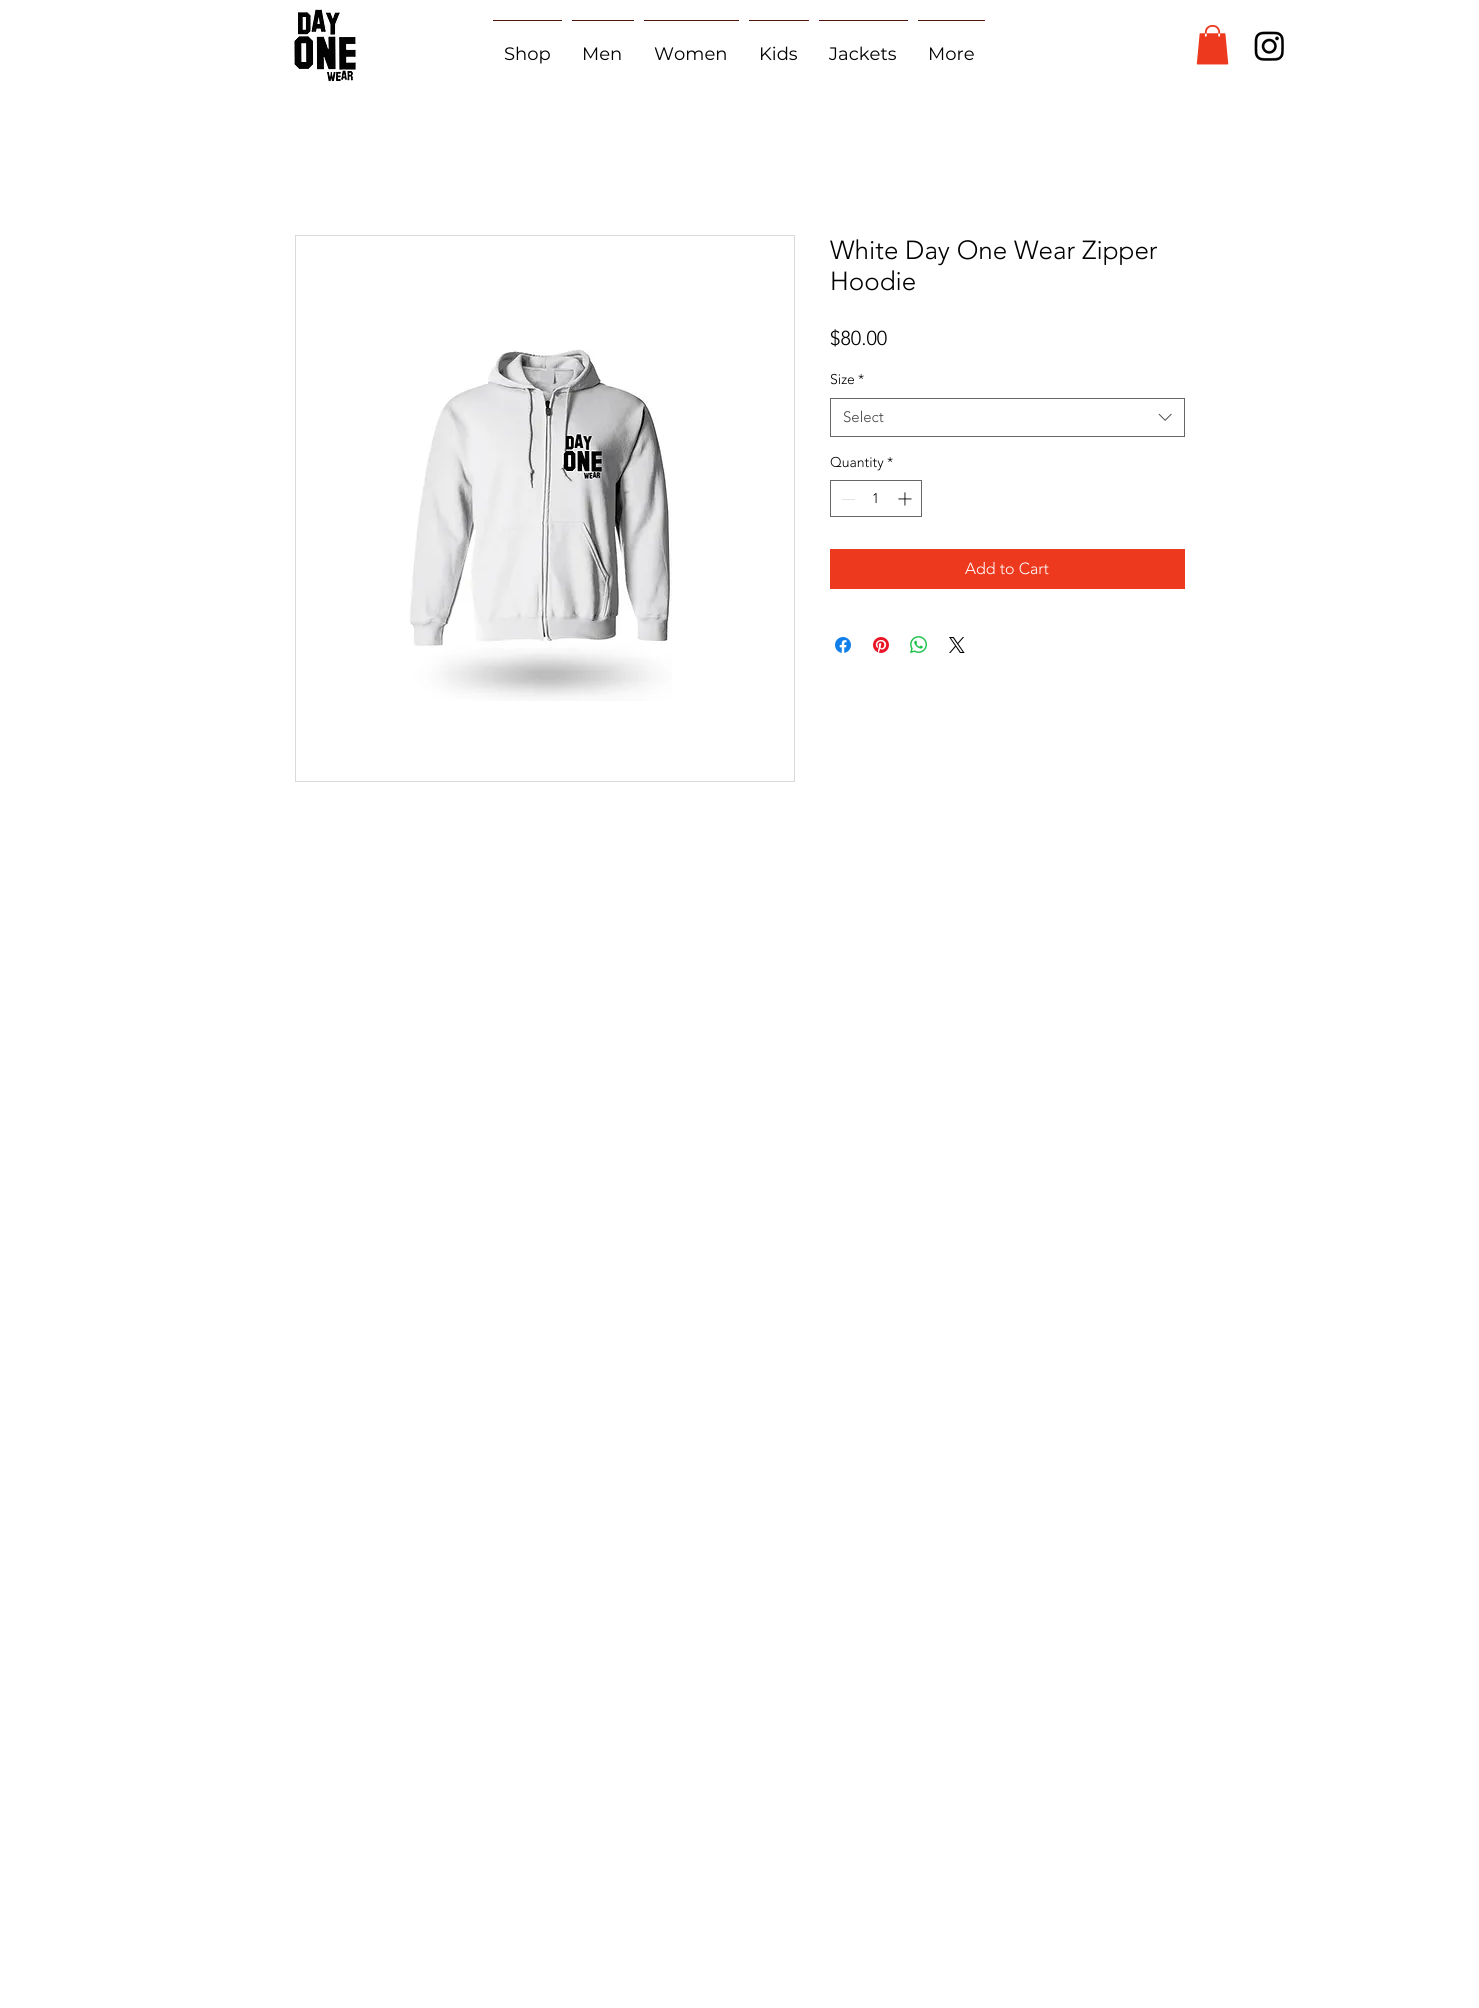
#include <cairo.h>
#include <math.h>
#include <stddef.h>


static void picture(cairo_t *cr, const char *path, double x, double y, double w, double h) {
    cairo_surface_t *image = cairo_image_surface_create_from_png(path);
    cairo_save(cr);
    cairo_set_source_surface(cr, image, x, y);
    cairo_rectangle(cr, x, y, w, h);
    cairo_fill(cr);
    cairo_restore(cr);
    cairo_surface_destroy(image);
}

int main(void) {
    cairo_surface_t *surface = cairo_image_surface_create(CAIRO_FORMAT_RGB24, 1479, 2008);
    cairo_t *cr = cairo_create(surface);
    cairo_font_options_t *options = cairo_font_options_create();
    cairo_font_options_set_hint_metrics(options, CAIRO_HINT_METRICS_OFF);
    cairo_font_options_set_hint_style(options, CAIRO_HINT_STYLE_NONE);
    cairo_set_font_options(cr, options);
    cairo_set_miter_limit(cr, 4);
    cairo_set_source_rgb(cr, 1, 1, 1);
    cairo_paint(cr);
    picture(cr, "img1.png", 293, 9, 64, 73);
    cairo_set_source_rgb(cr, 0.31, 0.075, 0.039);
    cairo_rectangle(cr, 493, 20, 69, 1);
    cairo_fill(cr);
    cairo_select_font_face(cr, "Montserrat", CAIRO_FONT_SLANT_NORMAL, CAIRO_FONT_WEIGHT_NORMAL);
    cairo_set_font_size(cr, 18);
    cairo_set_source_rgb(cr, 0, 0, 0);
    cairo_move_to(cr, 504, 60);
    cairo_show_text(cr, "Shop");
    cairo_set_source_rgb(cr, 0.31, 0.075, 0.039);
    cairo_rectangle(cr, 572, 20, 62, 1);
    cairo_fill(cr);
    cairo_set_source_rgb(cr, 0, 0, 0);
    cairo_move_to(cr, 582, 60);
    cairo_show_text(cr, "Men");
    cairo_set_source_rgb(cr, 0.31, 0.075, 0.039);
    cairo_rectangle(cr, 644, 20, 95, 1);
    cairo_fill(cr);
    cairo_set_source_rgb(cr, 0, 0, 0);
    cairo_move_to(cr, 654, 60);
    cairo_show_text(cr, "Women");
    cairo_set_source_rgb(cr, 0.31, 0.075, 0.039);
    cairo_rectangle(cr, 749, 20, 60, 1);
    cairo_fill(cr);
    cairo_set_source_rgb(cr, 0, 0, 0);
    cairo_move_to(cr, 759, 60);
    cairo_show_text(cr, "Kids");
    cairo_set_source_rgb(cr, 0.31, 0.075, 0.039);
    cairo_rectangle(cr, 819, 20, 89, 1);
    cairo_fill(cr);
    cairo_set_source_rgb(cr, 0, 0, 0);
    cairo_move_to(cr, 829, 60);
    cairo_show_text(cr, "Jackets");
    cairo_set_source_rgb(cr, 0.31, 0.075, 0.039);
    cairo_rectangle(cr, 918, 20, 67, 1);
    cairo_fill(cr);
    cairo_set_source_rgb(cr, 0, 0, 0);
    cairo_move_to(cr, 928, 60);
    cairo_show_text(cr, "More");
    picture(cr, "img2.png", 1196, 25, 33, 40);
    picture(cr, "img3.png", 1254, 31, 30, 30);
    cairo_rectangle(cr, 295.5, 235.5, 499, 546);
    cairo_set_source_rgb(cr, 0.851, 0.851, 0.851);
    cairo_set_line_width(cr, 1);
    cairo_stroke(cr);
    picture(cr, "img4.png", 409, 349, 263, 352);
    cairo_select_font_face(cr, "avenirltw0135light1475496 Light", CAIRO_FONT_SLANT_NORMAL, CAIRO_FONT_WEIGHT_NORMAL);
    cairo_set_font_size(cr, 26);
    cairo_set_source_rgb(cr, 0, 0, 0);
    cairo_move_to(cr, 830, 259);
    cairo_show_text(cr, "White Day One Wear Zipper");
    cairo_move_to(cr, 830, 290);
    cairo_show_text(cr, "Hoodie");
    cairo_set_font_size(cr, 20);
    cairo_move_to(cr, 830, 345);
    cairo_show_text(cr, "$80.00");
    cairo_set_font_size(cr, 14);
    cairo_move_to(cr, 830, 384);
    cairo_show_text(cr, "Size");
    cairo_move_to(cr, 858, 384);
    cairo_show_text(cr, "*");
    cairo_rectangle(cr, 830.5, 398.5, 354, 38);
    cairo_set_source_rgb(cr, 0.4, 0.4, 0.4);
    cairo_stroke(cr);
    cairo_set_font_size(cr, 15);
    cairo_set_source_rgb(cr, 0.267, 0.267, 0.267);
    cairo_move_to(cr, 843, 422);
    cairo_show_text(cr, "Select");
    picture(cr, "img5.png", 1158, 413, 14, 8);
    cairo_set_font_size(cr, 14);
    cairo_set_source_rgb(cr, 0, 0, 0);
    cairo_move_to(cr, 830, 467);
    cairo_show_text(cr, "Quantity");
    cairo_move_to(cr, 887, 467);
    cairo_show_text(cr, "*");
    cairo_rectangle(cr, 830.5, 480.5, 91, 36);
    cairo_set_source_rgb(cr, 0.4, 0.4, 0.4);
    cairo_stroke(cr);
    cairo_set_source_rgb(cr, 0.89, 0.89, 0.89);
    cairo_rectangle(cr, 842, 499, 13, 1);
    cairo_fill(cr);
    cairo_set_source_rgb(cr, 0, 0, 0);
    cairo_move_to(cr, 872, 503);
    cairo_show_text(cr, "1");
    picture(cr, "img6.png", 898, 492, 14, 14);
    cairo_set_source_rgb(cr, 0.929, 0.227, 0.118);
    cairo_rectangle(cr, 830, 549, 355, 40);
    cairo_fill(cr);
    cairo_set_font_size(cr, 16);
    cairo_set_source_rgb(cr, 1, 1, 1);
    cairo_move_to(cr, 965, 574);
    cairo_show_text(cr, "Add to Cart");
    picture(cr, "img7.png", 835, 637, 16, 16);
    picture(cr, "img8.png", 873, 637, 16, 16);
    picture(cr, "img9.png", 910, 636, 17, 17);
    picture(cr, "img10.png", 949, 637, 16, 16);
    cairo_surface_write_to_png(surface, "page.png");
    cairo_font_options_destroy(options);
    cairo_destroy(cr);
    cairo_surface_destroy(surface);
    return 0;
}
